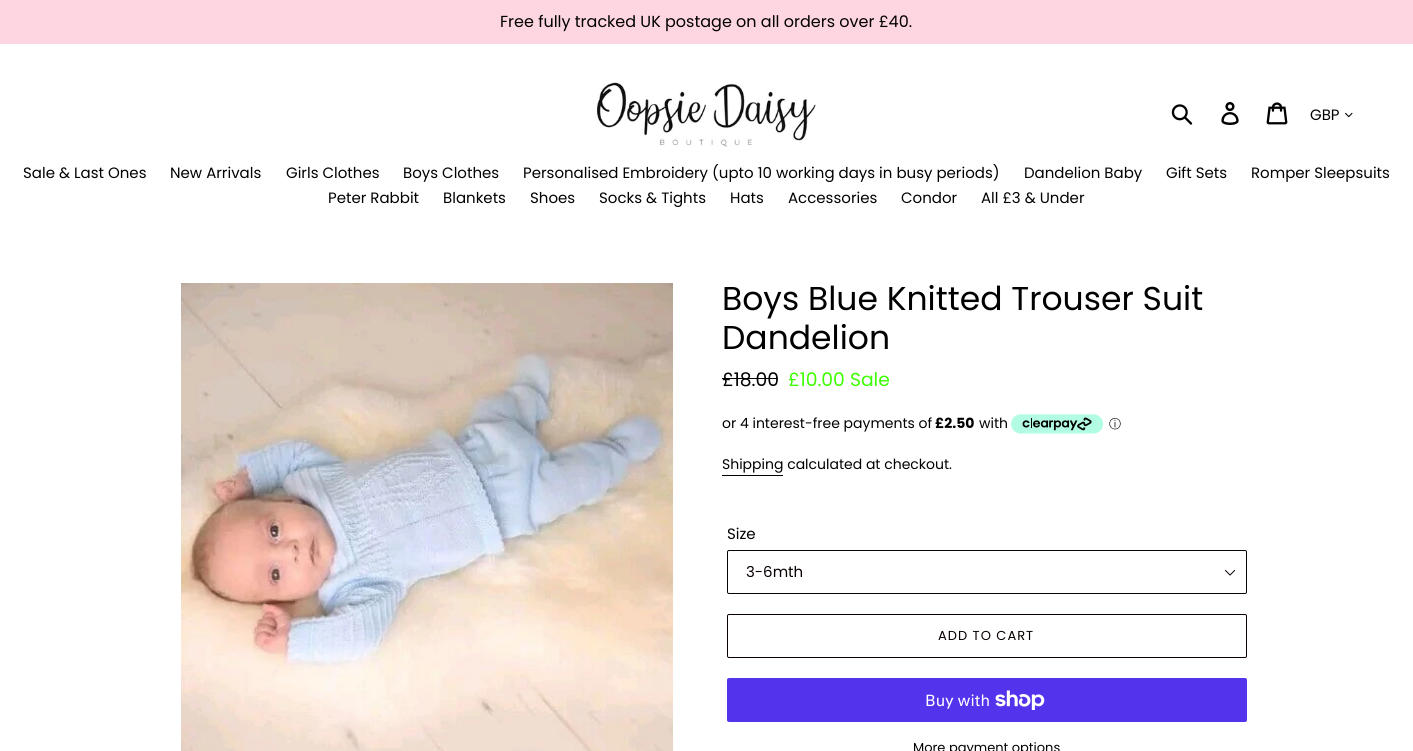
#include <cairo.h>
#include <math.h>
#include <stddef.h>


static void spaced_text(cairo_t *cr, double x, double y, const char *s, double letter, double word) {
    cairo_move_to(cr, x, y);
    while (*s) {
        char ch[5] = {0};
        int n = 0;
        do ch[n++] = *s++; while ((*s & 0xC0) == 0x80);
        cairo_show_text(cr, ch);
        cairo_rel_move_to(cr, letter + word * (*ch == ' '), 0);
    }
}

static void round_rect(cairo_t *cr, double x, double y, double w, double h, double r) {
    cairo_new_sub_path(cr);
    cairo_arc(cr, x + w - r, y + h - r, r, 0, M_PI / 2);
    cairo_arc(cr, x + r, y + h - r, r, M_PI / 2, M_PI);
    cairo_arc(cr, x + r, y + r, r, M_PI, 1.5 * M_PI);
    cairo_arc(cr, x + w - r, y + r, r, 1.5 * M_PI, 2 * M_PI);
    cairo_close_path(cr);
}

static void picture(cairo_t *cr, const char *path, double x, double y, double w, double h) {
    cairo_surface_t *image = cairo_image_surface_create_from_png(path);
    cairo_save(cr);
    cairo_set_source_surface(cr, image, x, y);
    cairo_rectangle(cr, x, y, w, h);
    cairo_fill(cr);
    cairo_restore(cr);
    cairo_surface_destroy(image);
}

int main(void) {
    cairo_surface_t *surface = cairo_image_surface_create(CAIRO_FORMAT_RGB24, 1413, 751);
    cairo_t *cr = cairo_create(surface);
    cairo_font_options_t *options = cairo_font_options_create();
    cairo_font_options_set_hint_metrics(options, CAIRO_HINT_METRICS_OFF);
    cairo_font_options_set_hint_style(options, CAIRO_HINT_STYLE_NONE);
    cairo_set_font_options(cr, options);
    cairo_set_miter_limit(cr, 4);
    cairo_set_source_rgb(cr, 1, 1, 1);
    cairo_paint(cr);
    cairo_set_source_rgb(cr, 0.996, 0.839, 0.882);
    cairo_rectangle(cr, 0, 0, 1413, 44);
    cairo_fill(cr);
    cairo_select_font_face(cr, "Poppins", CAIRO_FONT_SLANT_NORMAL, CAIRO_FONT_WEIGHT_NORMAL);
    cairo_set_font_size(cr, 16);
    cairo_set_source_rgb(cr, 0, 0, 0);
    cairo_move_to(cr, 500, 27);
    cairo_show_text(cr, "Free fully tracked UK postage on all orders over £40.");
    picture(cr, "img1.png", 596, 82, 220, 65);
    picture(cr, "img2.png", 1171, 104, 22, 21);
    picture(cr, "img3.png", 1221, 102, 18, 23);
    picture(cr, "img4.png", 1266, 102, 22, 23);
    cairo_set_font_size(cr, 15);
    cairo_move_to(cr, 1310, 120);
    cairo_show_text(cr, "GBP");
    picture(cr, "img5.png", 1345, 112, 8, 6);
    cairo_move_to(cr, 23, 178);
    cairo_show_text(cr, "Sale & Last Ones");
    cairo_move_to(cr, 170, 178);
    cairo_show_text(cr, "New Arrivals");
    cairo_move_to(cr, 286, 178);
    cairo_show_text(cr, "Girls Clothes");
    cairo_move_to(cr, 403, 178);
    cairo_show_text(cr, "Boys Clothes");
    cairo_move_to(cr, 523, 178);
    cairo_show_text(cr, "Personalised Embroidery (upto 10 working days in busy periods)");
    cairo_move_to(cr, 1024, 178);
    cairo_show_text(cr, "Dandelion Baby");
    cairo_move_to(cr, 1166, 178);
    cairo_show_text(cr, "Gift Sets");
    cairo_move_to(cr, 1251, 178);
    cairo_show_text(cr, "Romper Sleepsuits");
    cairo_move_to(cr, 328, 203);
    cairo_show_text(cr, "Peter Rabbit");
    cairo_move_to(cr, 443, 203);
    cairo_show_text(cr, "Blankets");
    cairo_move_to(cr, 530, 203);
    cairo_show_text(cr, "Shoes");
    cairo_move_to(cr, 599, 203);
    cairo_show_text(cr, "Socks & Tights");
    cairo_move_to(cr, 730, 203);
    cairo_show_text(cr, "Hats");
    cairo_move_to(cr, 788, 203);
    cairo_show_text(cr, "Accessories");
    cairo_move_to(cr, 901, 203);
    cairo_show_text(cr, "Condor");
    cairo_move_to(cr, 981, 203);
    cairo_show_text(cr, "All £3 & Under");
    picture(cr, "img6.png", 181, 283, 492, 468);
    cairo_set_font_size(cr, 33);
    cairo_move_to(cr, 722, 310);
    cairo_show_text(cr, "Boys Blue Knitted Trouser Suit");
    cairo_move_to(cr, 722, 349);
    cairo_show_text(cr, "Dandelion");
    cairo_set_font_size(cr, 18.75);
    cairo_move_to(cr, 722, 386);
    cairo_show_text(cr, "£18.00");
    cairo_rectangle(cr, 722, 378, 56, 1);
    cairo_fill(cr);
    cairo_set_source_rgb(cr, 0.239, 1, 0);
    cairo_move_to(cr, 788, 386);
    cairo_show_text(cr, "£10.00 Sale");
    cairo_set_font_size(cr, 14);
    cairo_set_source_rgb(cr, 0, 0, 0);
    cairo_move_to(cr, 722, 428);
    cairo_show_text(cr, "or 4 interest-free payments of");
    cairo_select_font_face(cr, "Poppins", CAIRO_FONT_SLANT_NORMAL, CAIRO_FONT_WEIGHT_BOLD);
    cairo_move_to(cr, 935, 428);
    cairo_show_text(cr, "£2.50");
    cairo_select_font_face(cr, "Poppins", CAIRO_FONT_SLANT_NORMAL, CAIRO_FONT_WEIGHT_NORMAL);
    cairo_move_to(cr, 979, 428);
    cairo_show_text(cr, "with");
    picture(cr, "img7.png", 1011, 414, 92, 20);
    cairo_select_font_face(cr, "WenQuanYi Zen Hei Medium", CAIRO_FONT_SLANT_NORMAL, CAIRO_FONT_WEIGHT_NORMAL);
    cairo_set_font_size(cr, 12);
    cairo_move_to(cr, 1109, 428);
    cairo_show_text(cr, "ⓘ");
    cairo_select_font_face(cr, "Poppins", CAIRO_FONT_SLANT_NORMAL, CAIRO_FONT_WEIGHT_NORMAL);
    cairo_set_font_size(cr, 14);
    cairo_move_to(cr, 722, 469);
    cairo_show_text(cr, "Shipping calculated at checkout.");
    cairo_rectangle(cr, 722, 475, 61, 1);
    cairo_fill(cr);
    cairo_set_font_size(cr, 15);
    cairo_move_to(cr, 727, 539);
    cairo_show_text(cr, "Size");
    picture(cr, "img8.png", 1224, 569, 12, 7);
    round_rect(cr, 727.5, 550.5, 519, 43, 1.5);
    cairo_set_source_rgb(cr, 0.008, 0.039, 0);
    cairo_set_line_width(cr, 1);
    cairo_stroke(cr);
    cairo_set_source_rgb(cr, 0.039, 0, 0);
    cairo_move_to(cr, 746, 577);
    cairo_show_text(cr, "3-6mth");
    round_rect(cr, 727.5, 614.5, 519, 43, 1.5);
    cairo_stroke(cr);
    cairo_set_font_size(cr, 13);
    spaced_text(cr, 938, 640, "ADD TO CART", 1, 0);
    cairo_set_source_rgb(cr, 0.329, 0.2, 0.922);
    round_rect(cr, 727, 678, 520, 44, 2);
    cairo_fill(cr);
    cairo_select_font_face(cr, "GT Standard", CAIRO_FONT_SLANT_NORMAL, CAIRO_FONT_WEIGHT_NORMAL);
    cairo_set_font_size(cr, 16);
    cairo_set_source_rgb(cr, 1, 1, 1);
    cairo_move_to(cr, 925, 706);
    cairo_show_text(cr, "Buy with");
    picture(cr, "img9.png", 995, 690, 50, 20);
    cairo_select_font_face(cr, "Poppins", CAIRO_FONT_SLANT_NORMAL, CAIRO_FONT_WEIGHT_NORMAL);
    cairo_set_font_size(cr, 13);
    cairo_set_source_rgb(cr, 0, 0, 0);
    cairo_move_to(cr, 913, 752);
    cairo_show_text(cr, "More payment options");
    cairo_surface_write_to_png(surface, "page.png");
    cairo_font_options_destroy(options);
    cairo_destroy(cr);
    cairo_surface_destroy(surface);
    return 0;
}
